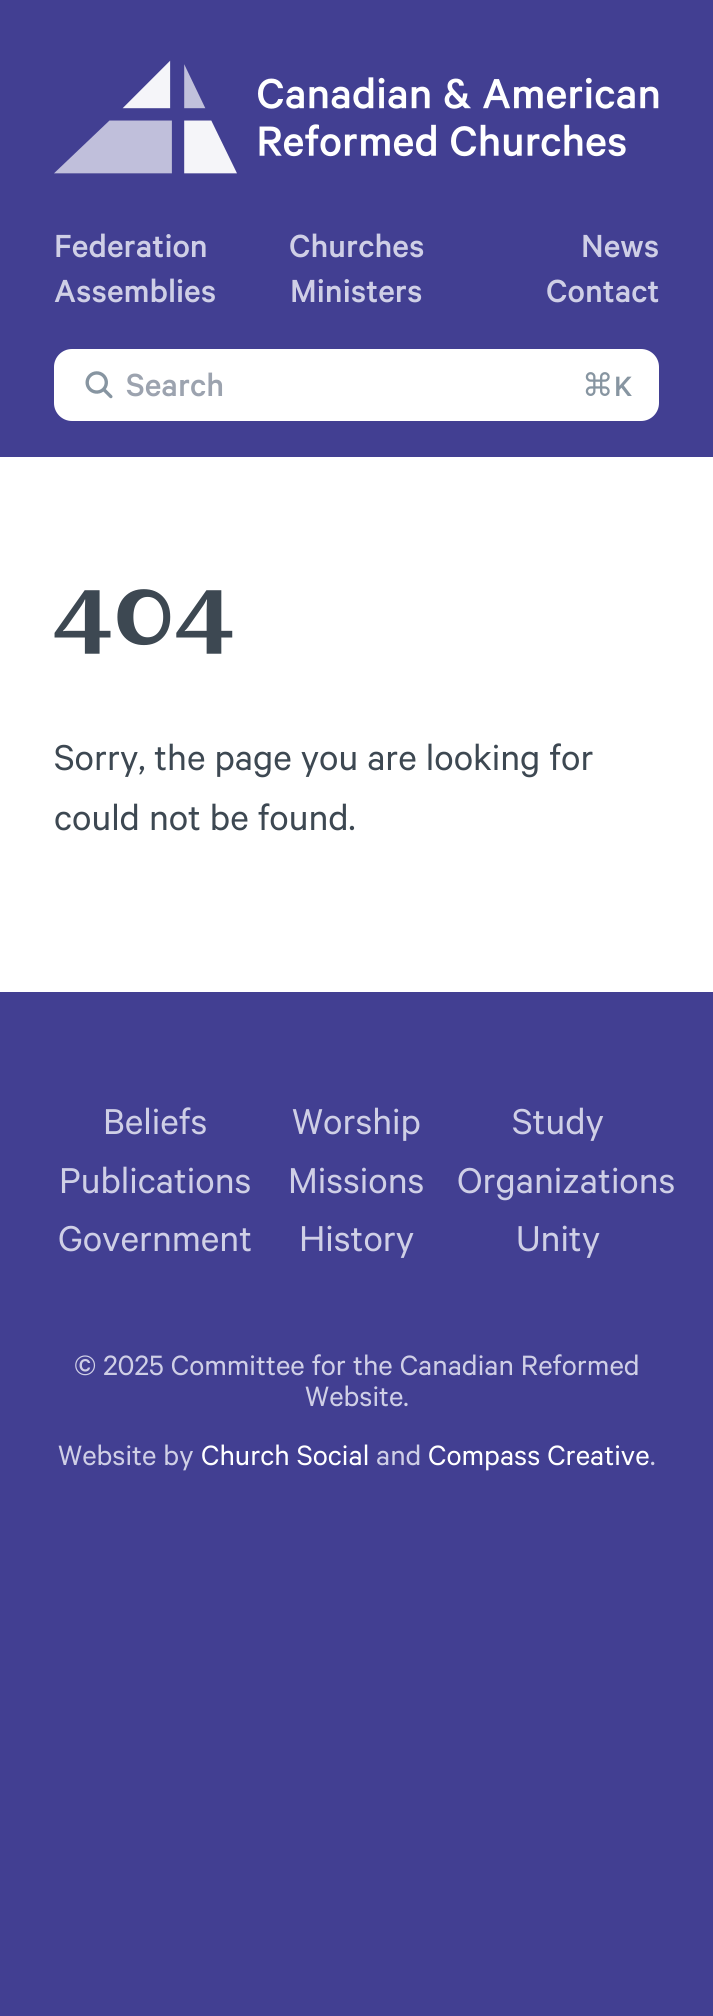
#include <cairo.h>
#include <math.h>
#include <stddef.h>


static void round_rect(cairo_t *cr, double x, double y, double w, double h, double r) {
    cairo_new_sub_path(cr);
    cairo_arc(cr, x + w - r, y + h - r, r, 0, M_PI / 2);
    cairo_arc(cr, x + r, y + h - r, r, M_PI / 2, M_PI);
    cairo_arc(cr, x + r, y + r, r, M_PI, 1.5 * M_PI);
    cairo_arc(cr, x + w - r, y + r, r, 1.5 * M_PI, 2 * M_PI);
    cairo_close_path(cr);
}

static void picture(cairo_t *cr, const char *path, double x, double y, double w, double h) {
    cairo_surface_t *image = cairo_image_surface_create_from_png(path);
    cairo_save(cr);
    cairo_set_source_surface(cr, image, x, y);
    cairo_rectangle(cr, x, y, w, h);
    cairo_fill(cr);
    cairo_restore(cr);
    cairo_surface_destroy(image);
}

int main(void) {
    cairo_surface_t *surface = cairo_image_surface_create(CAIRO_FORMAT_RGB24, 713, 2016);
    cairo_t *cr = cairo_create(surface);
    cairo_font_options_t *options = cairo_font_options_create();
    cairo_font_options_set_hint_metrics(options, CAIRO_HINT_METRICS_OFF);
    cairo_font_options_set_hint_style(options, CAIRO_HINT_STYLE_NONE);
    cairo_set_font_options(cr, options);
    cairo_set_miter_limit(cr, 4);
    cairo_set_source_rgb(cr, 0.259, 0.247, 0.573);
    cairo_paint(cr);
    picture(cr, "img1.png", 54, 60, 605, 114);
    cairo_select_font_face(cr, "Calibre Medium", CAIRO_FONT_SLANT_NORMAL, CAIRO_FONT_WEIGHT_NORMAL);
    cairo_set_font_size(cr, 36);
    cairo_set_source_rgb(cr, 0.812, 0.812, 0.902);
    cairo_move_to(cr, 54, 257);
    cairo_show_text(cr, "Federation");
    cairo_move_to(cr, 289, 257);
    cairo_show_text(cr, "Churches");
    cairo_move_to(cr, 581, 257);
    cairo_show_text(cr, "News");
    cairo_move_to(cr, 54, 302);
    cairo_show_text(cr, "Assemblies");
    cairo_move_to(cr, 290, 302);
    cairo_show_text(cr, "Ministers");
    cairo_move_to(cr, 546, 302);
    cairo_show_text(cr, "Contact");
    cairo_set_source_rgb(cr, 1, 1, 1);
    round_rect(cr, 54, 349, 605, 72, 18);
    cairo_fill(cr);
    picture(cr, "img2.png", 85, 371, 28, 28);
    cairo_set_source_rgb(cr, 0.612, 0.639, 0.686);
    cairo_move_to(cr, 126, 396);
    cairo_show_text(cr, "Search");
    cairo_select_font_face(cr, "DejaVu Sans", CAIRO_FONT_SLANT_NORMAL, CAIRO_FONT_WEIGHT_NORMAL);
    cairo_set_font_size(cr, 31.5);
    cairo_set_source_rgb(cr, 0.529, 0.584, 0.631);
    cairo_move_to(cr, 582, 396);
    cairo_show_text(cr, "⌘");
    cairo_select_font_face(cr, "Calibre Medium", CAIRO_FONT_SLANT_NORMAL, CAIRO_FONT_WEIGHT_NORMAL);
    cairo_move_to(cr, 614, 396);
    cairo_show_text(cr, "K");
    cairo_set_source_rgb(cr, 1, 1, 1);
    cairo_rectangle(cr, 0, 457, 713, 535);
    cairo_fill(cr);
    cairo_select_font_face(cr, "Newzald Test", CAIRO_FONT_SLANT_NORMAL, CAIRO_FONT_WEIGHT_BOLD);
    cairo_set_font_size(cr, 108);
    cairo_set_source_rgb(cr, 0.239, 0.282, 0.322);
    cairo_move_to(cr, 54, 644);
    cairo_show_text(cr, "404");
    cairo_select_font_face(cr, "Calibre", CAIRO_FONT_SLANT_NORMAL, CAIRO_FONT_WEIGHT_NORMAL);
    cairo_set_font_size(cr, 40.5);
    cairo_move_to(cr, 54, 770);
    cairo_show_text(cr, "Sorry, the page you are looking for");
    cairo_move_to(cr, 54, 830);
    cairo_show_text(cr, "could not be found.");
    cairo_set_source_rgb(cr, 0.812, 0.812, 0.902);
    cairo_move_to(cr, 103, 1134);
    cairo_show_text(cr, "Beliefs");
    cairo_move_to(cr, 292, 1134);
    cairo_show_text(cr, "Worship");
    cairo_move_to(cr, 512, 1134);
    cairo_show_text(cr, "Study");
    cairo_move_to(cr, 59, 1193);
    cairo_show_text(cr, "Publications");
    cairo_move_to(cr, 288, 1193);
    cairo_show_text(cr, "Missions");
    cairo_move_to(cr, 457, 1193);
    cairo_show_text(cr, "Organizations");
    cairo_move_to(cr, 58, 1251);
    cairo_show_text(cr, "Government");
    cairo_move_to(cr, 299, 1251);
    cairo_show_text(cr, "History");
    cairo_move_to(cr, 516, 1251);
    cairo_show_text(cr, "Unity");
    cairo_set_font_size(cr, 31.5);
    cairo_move_to(cr, 74, 1375);
    cairo_show_text(cr, "© 2025 Committee for the Canadian Reformed");
    cairo_move_to(cr, 305, 1406);
    cairo_show_text(cr, "Website.");
    cairo_move_to(cr, 58, 1465);
    cairo_show_text(cr, "Website by");
    cairo_set_source_rgb(cr, 1, 1, 1);
    cairo_move_to(cr, 201, 1465);
    cairo_show_text(cr, "Church Social");
    cairo_set_source_rgb(cr, 0.812, 0.812, 0.902);
    cairo_move_to(cr, 376, 1465);
    cairo_show_text(cr, "and");
    cairo_set_source_rgb(cr, 1, 1, 1);
    cairo_move_to(cr, 428, 1465);
    cairo_show_text(cr, "Compass Creative");
    cairo_set_source_rgb(cr, 0.812, 0.812, 0.902);
    cairo_move_to(cr, 650, 1465);
    cairo_show_text(cr, ".");
    cairo_surface_write_to_png(surface, "page.png");
    cairo_font_options_destroy(options);
    cairo_destroy(cr);
    cairo_surface_destroy(surface);
    return 0;
}
